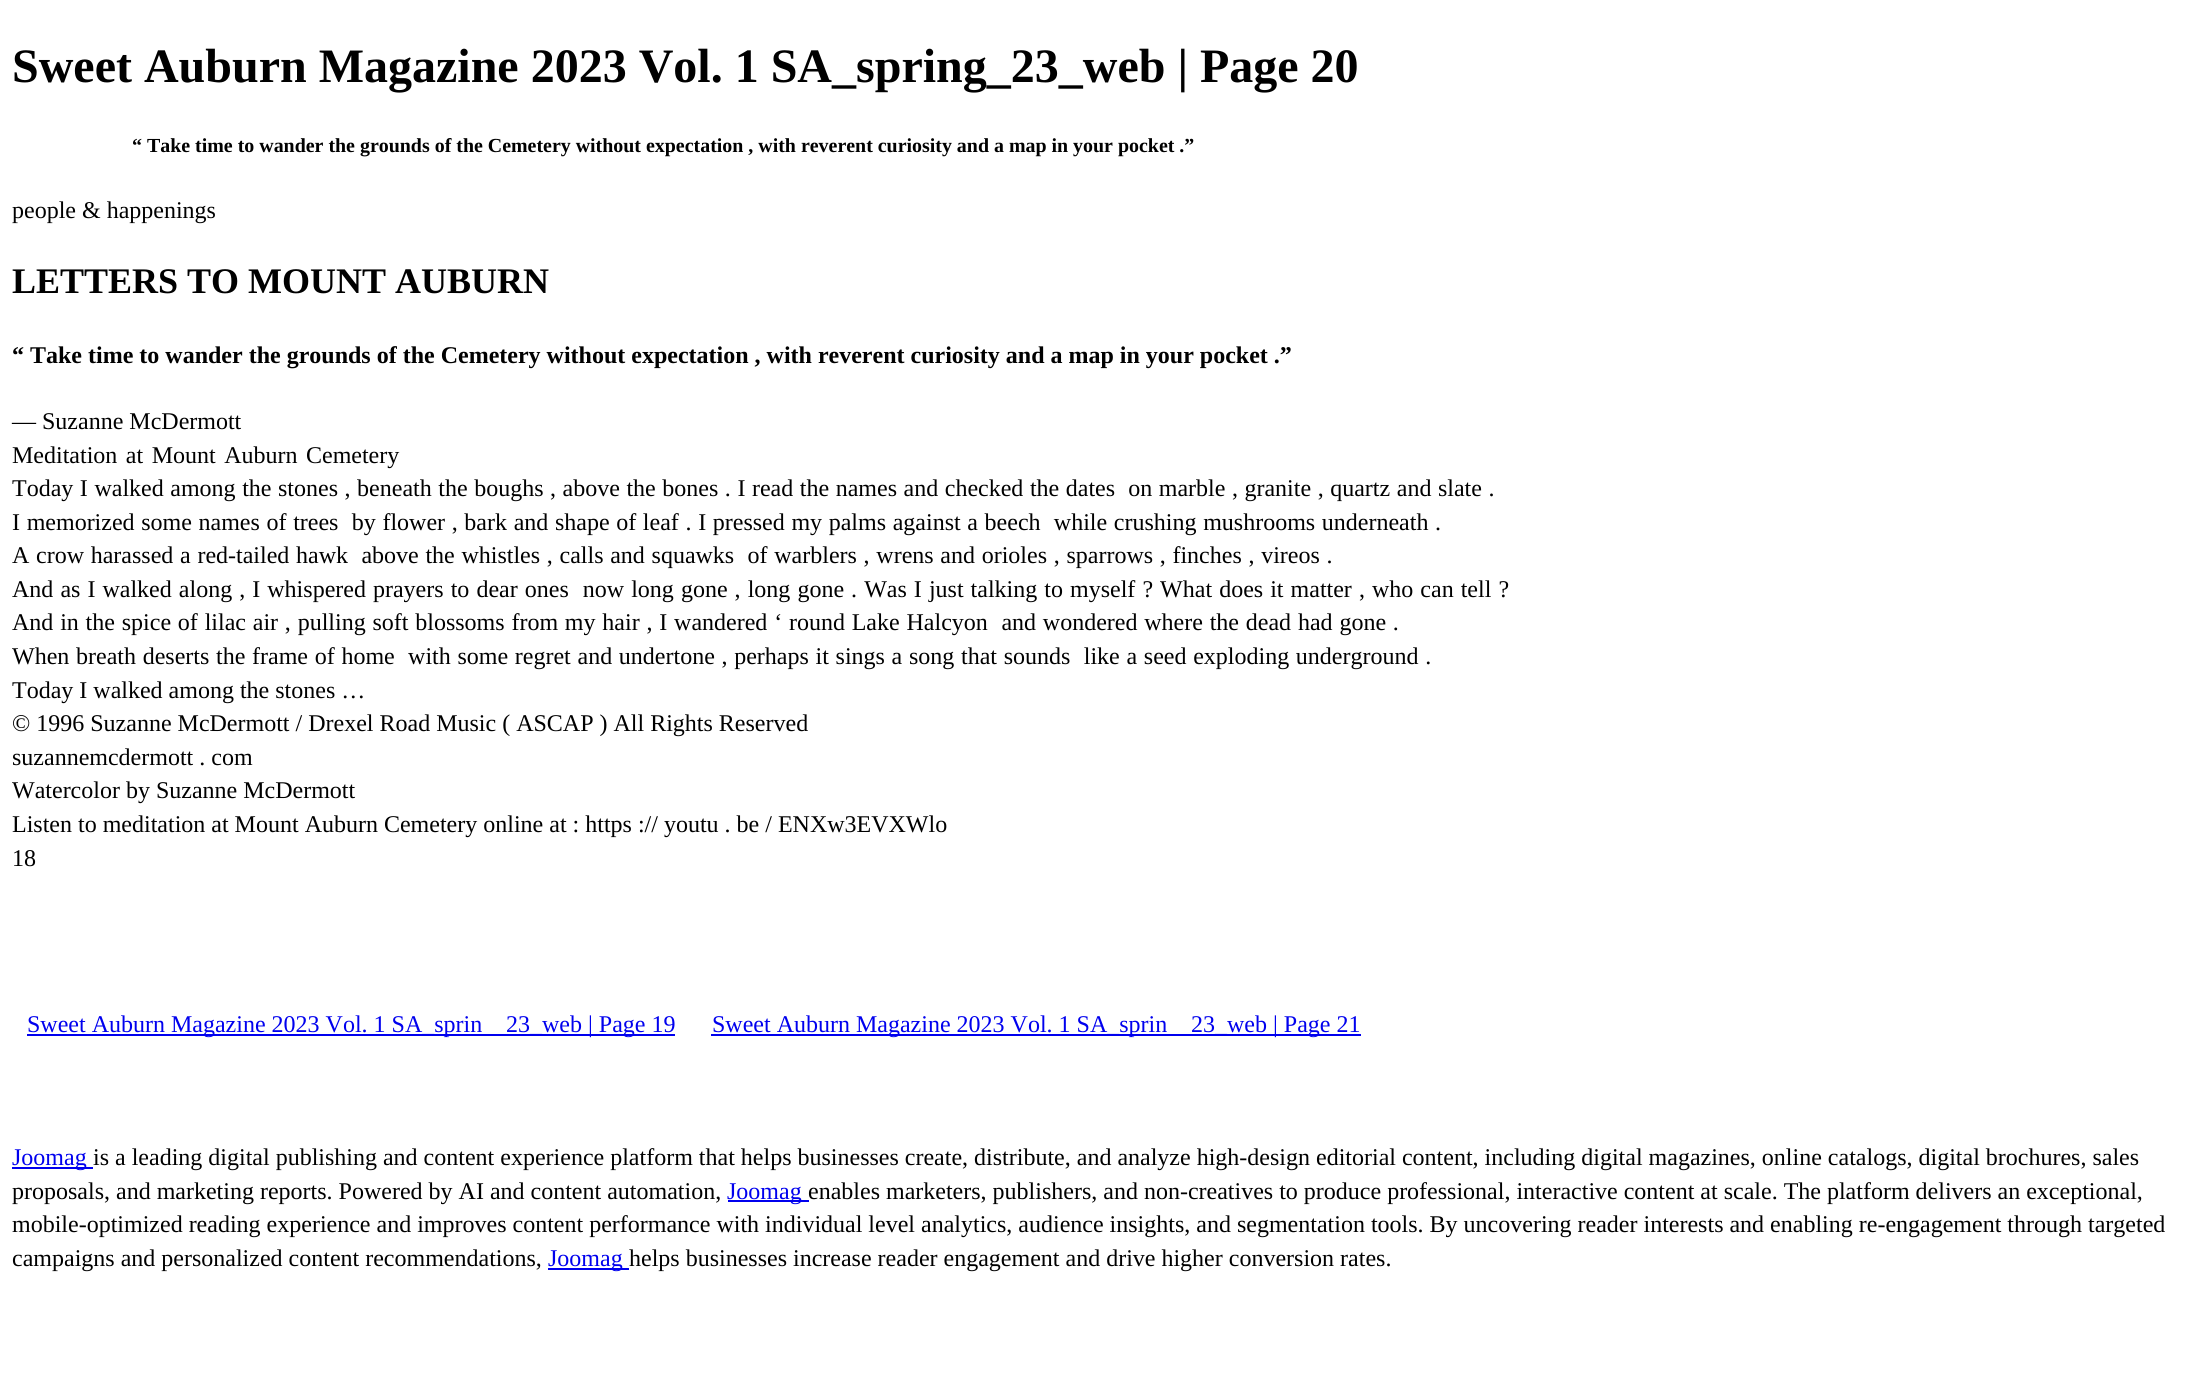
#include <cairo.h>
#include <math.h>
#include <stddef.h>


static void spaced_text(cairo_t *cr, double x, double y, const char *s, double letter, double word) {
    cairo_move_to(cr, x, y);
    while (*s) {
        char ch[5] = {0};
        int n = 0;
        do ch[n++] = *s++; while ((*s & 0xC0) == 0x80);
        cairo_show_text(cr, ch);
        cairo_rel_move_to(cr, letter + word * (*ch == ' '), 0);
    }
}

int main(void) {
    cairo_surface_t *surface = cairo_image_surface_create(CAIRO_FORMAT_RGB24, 2199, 1376);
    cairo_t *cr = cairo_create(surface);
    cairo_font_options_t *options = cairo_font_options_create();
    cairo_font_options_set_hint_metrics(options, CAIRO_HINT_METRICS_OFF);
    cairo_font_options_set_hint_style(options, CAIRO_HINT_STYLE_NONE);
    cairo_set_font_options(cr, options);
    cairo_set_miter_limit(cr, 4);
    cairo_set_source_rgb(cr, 1, 1, 1);
    cairo_paint(cr);
    cairo_select_font_face(cr, "Liberation Serif", CAIRO_FONT_SLANT_NORMAL, CAIRO_FONT_WEIGHT_BOLD);
    cairo_set_font_size(cr, 48);
    cairo_set_source_rgb(cr, 0, 0, 0);
    cairo_move_to(cr, 12, 82);
    cairo_show_text(cr, "Sweet Auburn Magazine 2023 Vol. 1 SA_spring_23_web | Page 20");
    cairo_set_font_size(cr, 19.92);
    cairo_move_to(cr, 132, 152);
    cairo_show_text(cr, "“ Take time to wander the grounds of the Cemetery without expectation , with reverent curiosity and a map in your pocket .”");
    cairo_select_font_face(cr, "Liberation Serif", CAIRO_FONT_SLANT_NORMAL, CAIRO_FONT_WEIGHT_NORMAL);
    cairo_set_font_size(cr, 24);
    cairo_move_to(cr, 12, 218);
    cairo_show_text(cr, "people & happenings");
    cairo_select_font_face(cr, "Liberation Serif", CAIRO_FONT_SLANT_NORMAL, CAIRO_FONT_WEIGHT_BOLD);
    cairo_set_font_size(cr, 36);
    cairo_move_to(cr, 12, 293);
    cairo_show_text(cr, "LETTERS TO MOUNT AUBURN");
    cairo_set_font_size(cr, 24);
    cairo_move_to(cr, 12, 363);
    cairo_show_text(cr, "“ Take time to wander the grounds of the Cemetery without expectation , with reverent curiosity and a map in your pocket .”");
    cairo_select_font_face(cr, "Liberation Serif", CAIRO_FONT_SLANT_NORMAL, CAIRO_FONT_WEIGHT_NORMAL);
    cairo_move_to(cr, 12, 429);
    cairo_show_text(cr, "— Suzanne McDermott");
    spaced_text(cr, 12, 463, "Meditation at Mount Auburn Cemetery", 0, 2.5);
    spaced_text(cr, 12, 496, "Today I walked among the stones , beneath the boughs , above the bones . I read the names and checked the dates  on marble , granite , quartz and slate .", 0, 0.55);
    spaced_text(cr, 12, 530, "I memorized some names of trees  by flower , bark and shape of leaf . I pressed my palms against a beech  while crushing mushrooms underneath .", 0, 0.65);
    spaced_text(cr, 12, 563, "A crow harassed a red-tailed hawk  above the whistles , calls and squawks  of warblers , wrens and orioles , sparrows , finches , vireos .", 0, 0.7);
    spaced_text(cr, 12, 597, "And as I walked along , I whispered prayers to dear ones  now long gone , long gone . Was I just talking to myself ? What does it matter , who can tell ?", 0, 1.05);
    spaced_text(cr, 12, 630, "And in the spice of lilac air , pulling soft blossoms from my hair , I wandered ‘ round Lake Halcyon  and wondered where the dead had gone .", 0, 0.8);
    spaced_text(cr, 12, 664, "When breath deserts the frame of home  with some regret and undertone , perhaps it sings a song that sounds  like a seed exploding underground .", 0, 0.7);
    cairo_move_to(cr, 12, 698);
    cairo_show_text(cr, "Today I walked among the stones …");
    cairo_move_to(cr, 12, 731);
    cairo_show_text(cr, "© 1996 Suzanne McDermott / Drexel Road Music ( ASCAP ) All Rights Reserved");
    cairo_move_to(cr, 12, 765);
    cairo_show_text(cr, "suzannemcdermott . com");
    cairo_move_to(cr, 12, 798);
    cairo_show_text(cr, "Watercolor by Suzanne McDermott");
    cairo_move_to(cr, 12, 832);
    cairo_show_text(cr, "Listen to meditation at Mount Auburn Cemetery online at : https :// youtu . be / ENXw3EVXWlo");
    cairo_move_to(cr, 12, 866);
    cairo_show_text(cr, "18");
    cairo_set_source_rgb(cr, 0, 0, 0.933);
    cairo_rectangle(cr, 27, 1034, 648, 2);
    cairo_fill(cr);
    cairo_move_to(cr, 27, 1032);
    cairo_show_text(cr, "Sweet Auburn Magazine 2023 Vol. 1 SA_sprin");
    cairo_move_to(cr, 506, 1032);
    cairo_show_text(cr, "23_web | Page 19");
    cairo_rectangle(cr, 711, 1034, 650, 2);
    cairo_fill(cr);
    cairo_move_to(cr, 712, 1032);
    cairo_show_text(cr, "Sweet Auburn Magazine 2023 Vol. 1 SA_sprin");
    cairo_move_to(cr, 1191, 1032);
    cairo_show_text(cr, "23_web | Page 21");
    cairo_rectangle(cr, 12, 1167, 81, 2);
    cairo_fill(cr);
    cairo_move_to(cr, 12, 1165);
    cairo_show_text(cr, "Joomag");
    cairo_set_source_rgb(cr, 0, 0, 0);
    cairo_move_to(cr, 93, 1165);
    cairo_show_text(cr, "is a leading digital publishing and content experience platform that helps businesses create, distribute, and analyze high-design editorial content, including digital magazines, online catalogs, digital brochures, sales");
    cairo_move_to(cr, 12, 1199);
    cairo_show_text(cr, "proposals, and marketing reports. Powered by AI and content automation,");
    cairo_set_source_rgb(cr, 0, 0, 0.933);
    cairo_rectangle(cr, 728, 1200, 81, 2);
    cairo_fill(cr);
    cairo_move_to(cr, 727, 1199);
    cairo_show_text(cr, "Joomag");
    cairo_set_source_rgb(cr, 0, 0, 0);
    cairo_move_to(cr, 808, 1199);
    cairo_show_text(cr, "enables marketers, publishers, and non-creatives to produce professional, interactive content at scale. The platform delivers an exceptional,");
    cairo_move_to(cr, 12, 1232);
    cairo_show_text(cr, "mobile-optimized reading experience and improves content performance with individual level analytics, audience insights, and segmentation tools. By uncovering reader interests and enabling re-engagement through targeted");
    cairo_move_to(cr, 12, 1266);
    cairo_show_text(cr, "campaigns and personalized content recommendations,");
    cairo_set_source_rgb(cr, 0, 0, 0.933);
    cairo_rectangle(cr, 548, 1268, 81, 2);
    cairo_fill(cr);
    cairo_move_to(cr, 548, 1266);
    cairo_show_text(cr, "Joomag");
    cairo_set_source_rgb(cr, 0, 0, 0);
    cairo_move_to(cr, 629, 1266);
    cairo_show_text(cr, "helps businesses increase reader engagement and drive higher conversion rates.");
    cairo_surface_write_to_png(surface, "page.png");
    cairo_font_options_destroy(options);
    cairo_destroy(cr);
    cairo_surface_destroy(surface);
    return 0;
}
